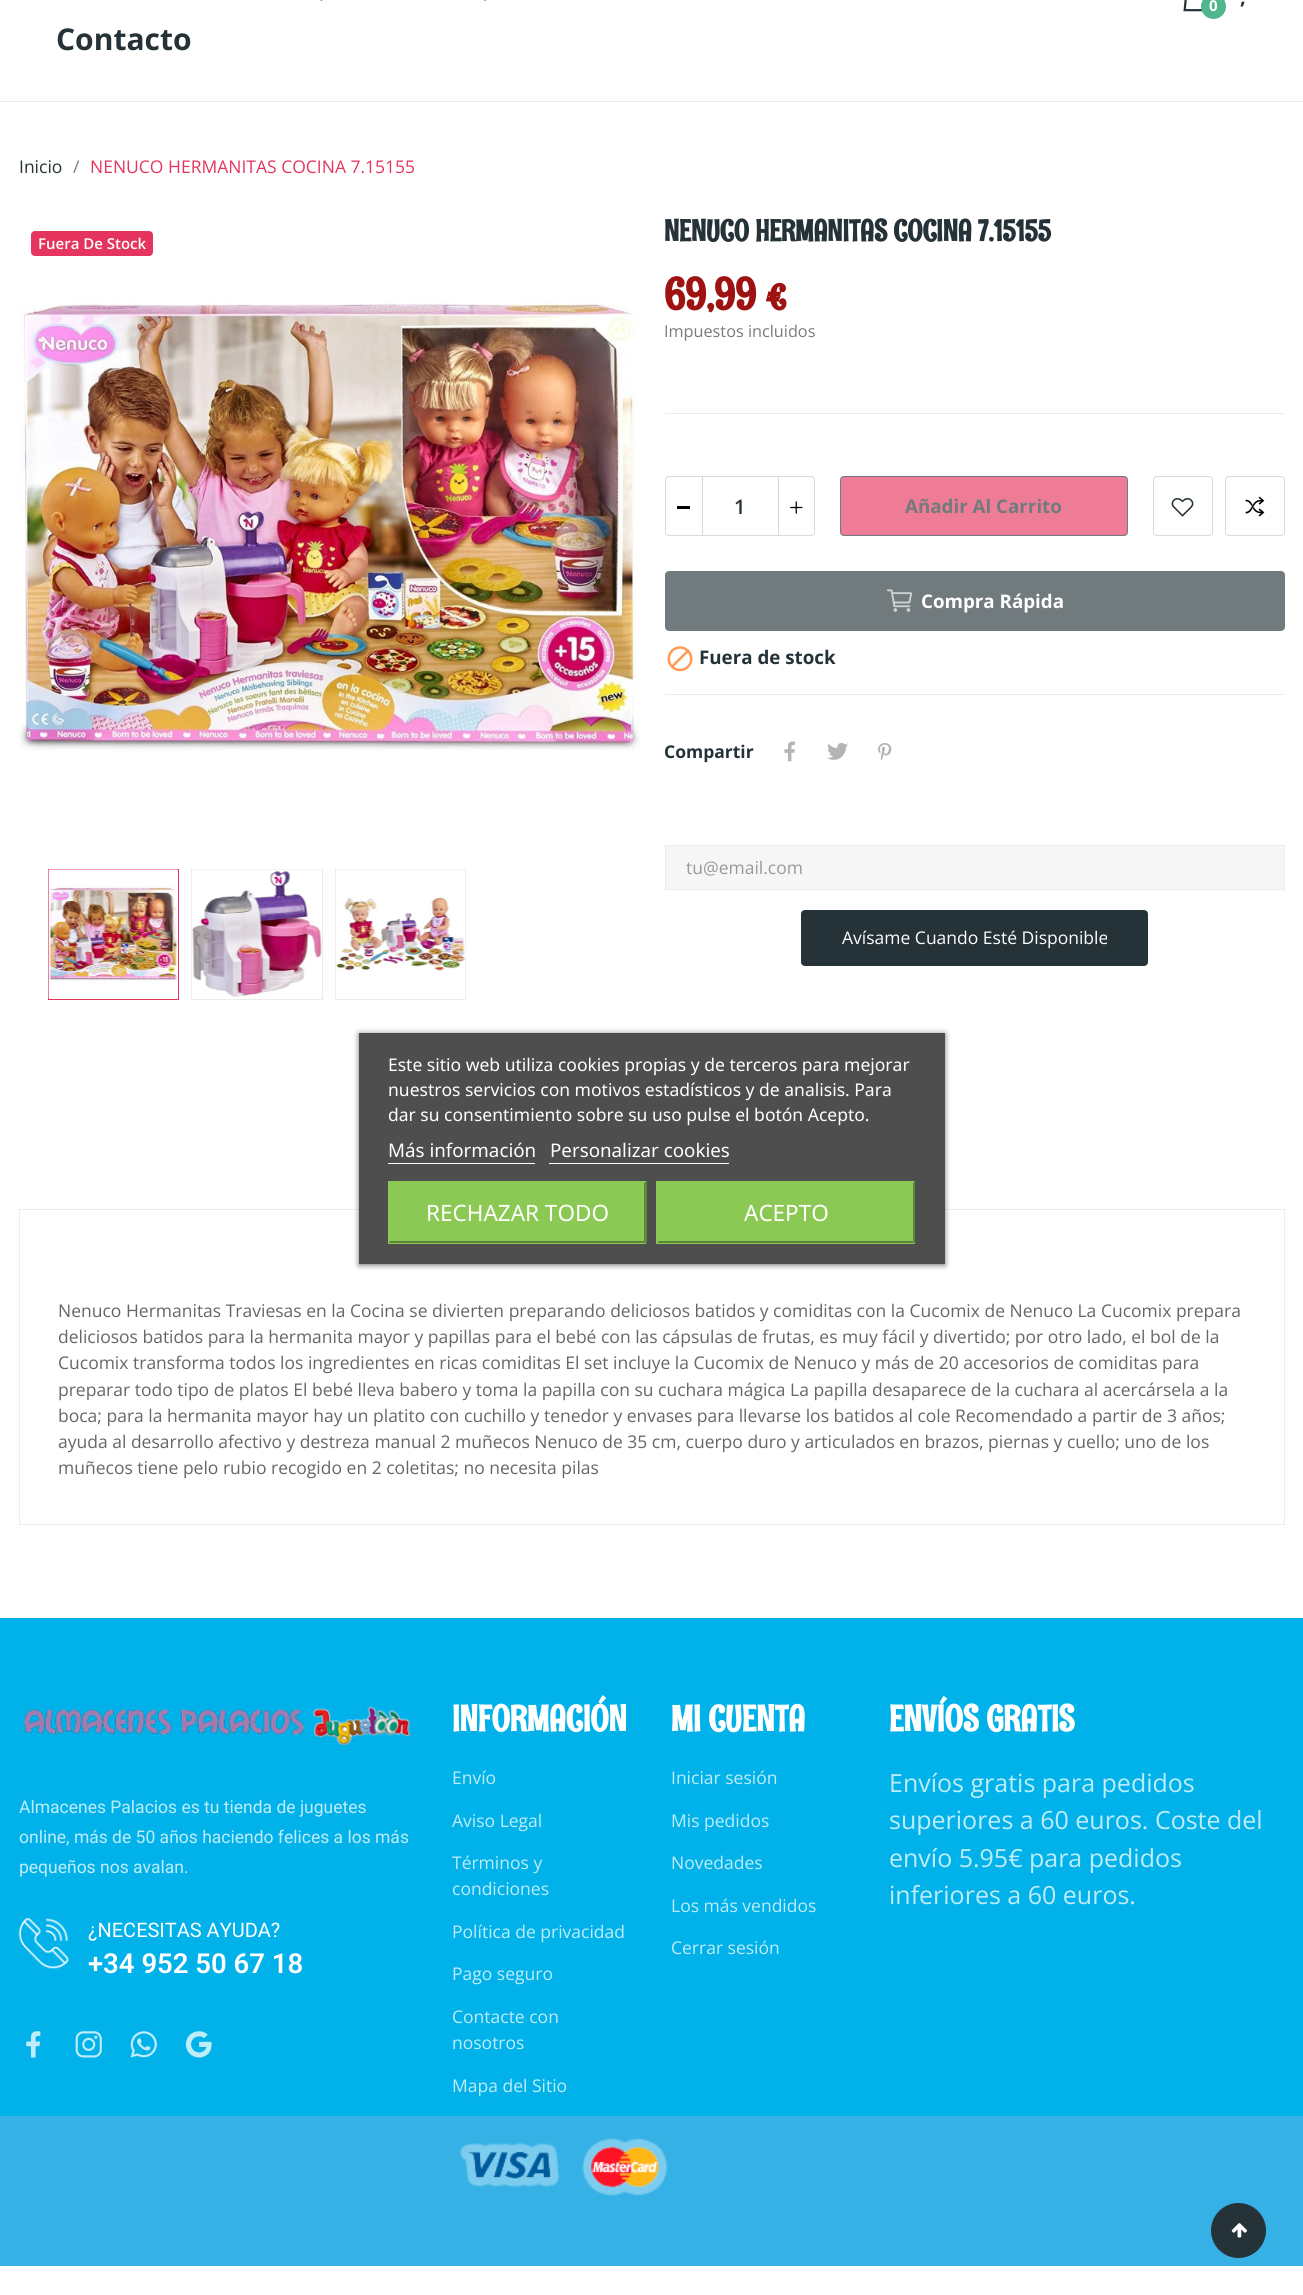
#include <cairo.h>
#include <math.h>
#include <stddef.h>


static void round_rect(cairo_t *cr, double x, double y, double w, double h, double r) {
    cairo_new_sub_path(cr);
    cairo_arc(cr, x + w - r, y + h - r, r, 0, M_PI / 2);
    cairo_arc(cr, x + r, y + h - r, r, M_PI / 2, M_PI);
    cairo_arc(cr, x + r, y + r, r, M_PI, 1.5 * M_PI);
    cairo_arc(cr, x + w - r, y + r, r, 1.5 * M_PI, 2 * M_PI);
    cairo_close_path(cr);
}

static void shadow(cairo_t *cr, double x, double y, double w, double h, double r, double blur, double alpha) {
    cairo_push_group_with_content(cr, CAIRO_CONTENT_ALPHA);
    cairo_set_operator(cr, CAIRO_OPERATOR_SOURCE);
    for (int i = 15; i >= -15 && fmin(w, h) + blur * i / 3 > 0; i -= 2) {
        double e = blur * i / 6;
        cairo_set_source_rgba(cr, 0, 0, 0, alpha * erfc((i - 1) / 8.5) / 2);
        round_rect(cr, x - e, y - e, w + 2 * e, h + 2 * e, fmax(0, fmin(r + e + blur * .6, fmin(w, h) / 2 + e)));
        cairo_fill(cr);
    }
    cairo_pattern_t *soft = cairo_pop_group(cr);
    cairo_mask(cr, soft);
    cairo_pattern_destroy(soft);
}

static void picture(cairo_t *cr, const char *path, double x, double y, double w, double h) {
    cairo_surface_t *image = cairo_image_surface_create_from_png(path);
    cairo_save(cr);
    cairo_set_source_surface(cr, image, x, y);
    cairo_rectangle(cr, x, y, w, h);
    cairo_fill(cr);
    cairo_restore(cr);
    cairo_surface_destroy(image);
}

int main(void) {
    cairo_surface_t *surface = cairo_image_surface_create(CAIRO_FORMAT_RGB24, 1303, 2295);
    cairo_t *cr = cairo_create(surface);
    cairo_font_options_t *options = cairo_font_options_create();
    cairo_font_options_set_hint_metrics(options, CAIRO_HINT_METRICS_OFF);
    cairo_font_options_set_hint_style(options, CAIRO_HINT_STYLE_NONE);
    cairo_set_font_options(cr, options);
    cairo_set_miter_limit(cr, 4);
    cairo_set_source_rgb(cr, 1, 1, 1);
    cairo_paint(cr);
    cairo_set_source_rgb(cr, 0.922, 0.922, 0.922);
    cairo_rectangle(cr, 0, 101, 1303, 1);
    cairo_fill(cr);
    picture(cr, "img1.png", 1183, 0, 20, 12);
    cairo_set_source_rgb(cr, 0.31, 0.714, 0.553);
    cairo_arc(cr, 1213.5, 6.5, 12.5, 0, 2 * M_PI);
    cairo_fill(cr);
    cairo_select_font_face(cr, "Open Sans", CAIRO_FONT_SLANT_NORMAL, CAIRO_FONT_WEIGHT_BOLD);
    cairo_set_font_size(cr, 15);
    cairo_set_source_rgb(cr, 1, 1, 1);
    cairo_move_to(cr, 1209, 11);
    cairo_show_text(cr, "0");
    cairo_set_font_size(cr, 20);
    cairo_set_source_rgb(cr, 0.145, 0.196, 0.216);
    cairo_move_to(cr, 1240, 4);
    cairo_show_text(cr, ",");
    picture(cr, "img2.png", 320, 0, 3, 1);
    picture(cr, "img3.png", 484, 0, 2, 1);
    cairo_set_font_size(cr, 30);
    cairo_move_to(cr, 56, 50);
    cairo_show_text(cr, "Contacto");
    cairo_select_font_face(cr, "Open Sans", CAIRO_FONT_SLANT_NORMAL, CAIRO_FONT_WEIGHT_NORMAL);
    cairo_set_font_size(cr, 17.5);
    cairo_move_to(cr, 19, 173);
    cairo_show_text(cr, "Inicio");
    cairo_set_source_rgb(cr, 0.478, 0.478, 0.478);
    cairo_move_to(cr, 73, 173);
    cairo_show_text(cr, "/");
    cairo_set_source_rgb(cr, 0.898, 0.208, 0.373);
    cairo_move_to(cr, 90, 173);
    cairo_show_text(cr, "NENUCO HERMANITAS COCINA 7.15155");
    round_rect(cr, 31, 231, 122, 25, 4);
    cairo_fill(cr);
    cairo_select_font_face(cr, "Open Sans SemiBold", CAIRO_FONT_SLANT_NORMAL, CAIRO_FONT_WEIGHT_NORMAL);
    cairo_set_font_size(cr, 15);
    cairo_set_source_rgb(cr, 1, 1, 1);
    cairo_move_to(cr, 38, 249);
    cairo_show_text(cr, "Fuera De Stock");
    picture(cr, "img4.png", 19, 302, 621, 449);
    cairo_rectangle(cr, 48.5, 869.5, 130, 130);
    cairo_set_source_rgb(cr, 0.898, 0.208, 0.373);
    cairo_set_line_width(cr, 1);
    cairo_stroke(cr);
    picture(cr, "img5.png", 48, 869, 130, 130);
    cairo_rectangle(cr, 191.5, 869.5, 131, 130);
    cairo_set_source_rgb(cr, 0.922, 0.922, 0.922);
    cairo_stroke(cr);
    picture(cr, "img6.png", 192, 869, 130, 128);
    cairo_rectangle(cr, 335.5, 869.5, 130, 130);
    cairo_stroke(cr);
    picture(cr, "img7.png", 336, 869, 130, 129);
    cairo_select_font_face(cr, "Rum Raisin", CAIRO_FONT_SLANT_NORMAL, CAIRO_FONT_WEIGHT_BOLD);
    cairo_set_font_size(cr, 30);
    cairo_set_source_rgb(cr, 0.145, 0.196, 0.216);
    cairo_move_to(cr, 664, 241);
    cairo_show_text(cr, "NENUCO HERMANITAS COCINA 7.15155");
    cairo_set_font_size(cr, 44);
    cairo_set_source_rgb(cr, 0.62, 0.071, 0.071);
    cairo_move_to(cr, 664, 309);
    cairo_show_text(cr, "69,99 €");
    cairo_select_font_face(cr, "Open Sans", CAIRO_FONT_SLANT_NORMAL, CAIRO_FONT_WEIGHT_NORMAL);
    cairo_set_font_size(cr, 16.25);
    cairo_set_source_rgb(cr, 0.478, 0.478, 0.478);
    cairo_move_to(cr, 664, 337);
    cairo_show_text(cr, "Impuestos incluidos");
    cairo_set_source_rgb(cr, 0.922, 0.922, 0.922);
    cairo_rectangle(cr, 665, 413, 620, 1);
    cairo_fill(cr);
    cairo_new_path(cr);
    cairo_move_to(cr, 669, 476.5);
    cairo_line_to(cr, 702.5, 476.5);
    cairo_line_to(cr, 702.5, 535.5);
    cairo_line_to(cr, 669, 535.5);
    cairo_curve_to(cr, 667, 535.5, 665.5, 534, 665.5, 532);
    cairo_line_to(cr, 665.5, 480);
    cairo_curve_to(cr, 665.5, 478, 667, 476.5, 669, 476.5);
    cairo_close_path(cr);
    cairo_set_source_rgb(cr, 0.851, 0.851, 0.851);
    cairo_stroke(cr);
    cairo_set_source_rgb(cr, 0, 0, 0);
    cairo_rectangle(cr, 677, 506, 13, 3);
    cairo_fill(cr);
    cairo_new_path(cr);
    cairo_move_to(cr, 778.5, 476.5);
    cairo_line_to(cr, 811, 476.5);
    cairo_curve_to(cr, 813, 476.5, 814.5, 478, 814.5, 480);
    cairo_line_to(cr, 814.5, 532);
    cairo_curve_to(cr, 814.5, 534, 813, 535.5, 811, 535.5);
    cairo_line_to(cr, 778.5, 535.5);
    cairo_close_path(cr);
    cairo_set_source_rgb(cr, 0.851, 0.851, 0.851);
    cairo_stroke(cr);
    picture(cr, "img8.png", 790, 501, 13, 13);
    cairo_rectangle(cr, 703, 476, 75, 1);
    cairo_fill(cr);
    cairo_rectangle(cr, 703, 535, 75, 1);
    cairo_fill(cr);
    cairo_select_font_face(cr, "Open Sans SemiBold", CAIRO_FONT_SLANT_NORMAL, CAIRO_FONT_WEIGHT_NORMAL);
    cairo_set_font_size(cr, 20);
    cairo_set_source_rgb(cr, 0.145, 0.196, 0.216);
    cairo_move_to(cr, 734, 514);
    cairo_show_text(cr, "1");
    cairo_set_source_rgb(cr, 0.933, 0.486, 0.592);
    round_rect(cr, 840.5, 476.5, 287, 59, 3.5);
    cairo_fill_preserve(cr);
    cairo_set_source_rgb(cr, 0.443, 0.478, 0.49);
    cairo_stroke(cr);
    cairo_select_font_face(cr, "Open Sans", CAIRO_FONT_SLANT_NORMAL, CAIRO_FONT_WEIGHT_BOLD);
    cairo_set_font_size(cr, 18.75);
    cairo_move_to(cr, 905, 513);
    cairo_show_text(cr, "Añadir Al Carrito");
    round_rect(cr, 1153.5, 476.5, 59, 59, 3.5);
    cairo_set_source_rgb(cr, 0.851, 0.851, 0.851);
    cairo_stroke(cr);
    picture(cr, "img9.png", 1171, 498, 23, 19);
    round_rect(cr, 1225.5, 476.5, 59, 59, 3.5);
    cairo_stroke(cr);
    picture(cr, "img10.png", 1245, 496, 20, 21);
    cairo_set_source_rgb(cr, 0.443, 0.478, 0.49);
    round_rect(cr, 666.5, 572.5, 617, 57, 2.5);
    cairo_fill_preserve(cr);
    cairo_set_line_width(cr, 3);
    cairo_stroke(cr);
    picture(cr, "img11.png", 887, 589, 26, 23);
    cairo_set_source_rgb(cr, 1, 1, 1);
    cairo_move_to(cr, 921, 608);
    cairo_show_text(cr, "Compra Rápida");
    picture(cr, "img12.png", 667, 646, 26, 26);
    cairo_set_source_rgb(cr, 0.145, 0.196, 0.216);
    cairo_move_to(cr, 699, 664);
    cairo_show_text(cr, "Fuera de stock");
    cairo_set_source_rgb(cr, 0.922, 0.922, 0.922);
    cairo_rectangle(cr, 665, 694, 620, 1);
    cairo_fill(cr);
    cairo_set_font_size(cr, 17.5);
    cairo_set_source_rgb(cr, 0.145, 0.196, 0.216);
    cairo_move_to(cr, 664, 758);
    cairo_show_text(cr, "Compartir");
    picture(cr, "img13.png", 784, 741, 11, 21);
    picture(cr, "img14.png", 827, 743, 21, 17);
    picture(cr, "img15.png", 878, 743, 14, 18);
    cairo_set_source_rgb(cr, 0.961, 0.961, 0.961);
    cairo_rectangle(cr, 665.5, 845.5, 619, 44);
    cairo_fill_preserve(cr);
    cairo_set_source_rgb(cr, 0.922, 0.922, 0.922);
    cairo_set_line_width(cr, 1);
    cairo_stroke(cr);
    cairo_select_font_face(cr, "Open Sans", CAIRO_FONT_SLANT_NORMAL, CAIRO_FONT_WEIGHT_NORMAL);
    cairo_set_source_rgb(cr, 0.6, 0.6, 0.6);
    cairo_move_to(cr, 686, 874);
    cairo_show_text(cr, "tu@email.com");
    cairo_set_source_rgb(cr, 0.145, 0.196, 0.216);
    round_rect(cr, 802.5, 911.5, 344, 53, 2.5);
    cairo_fill_preserve(cr);
    cairo_set_line_width(cr, 3);
    cairo_stroke(cr);
    cairo_set_source_rgb(cr, 1, 1, 1);
    cairo_move_to(cr, 842, 944);
    cairo_show_text(cr, "Avísame Cuando Esté Disponible");
    cairo_rectangle(cr, 19.5, 1209.5, 1265, 315);
    cairo_set_source_rgb(cr, 0.922, 0.922, 0.922);
    cairo_set_line_width(cr, 1);
    cairo_stroke(cr);
    cairo_set_source_rgb(cr, 0.4, 0.4, 0.4);
    cairo_move_to(cr, 58, 1317);
    cairo_show_text(cr, "Nenuco Hermanitas Traviesas en la Cocina se divierten preparando deliciosos batidos y comiditas con la Cucomix de Nenuco La Cucomix prepara");
    cairo_move_to(cr, 58, 1343);
    cairo_show_text(cr, "deliciosos batidos para la hermanita mayor y papillas para el bebé con las cápsulas de frutas, es muy fácil y divertido; por otro lado, el bol de la");
    cairo_move_to(cr, 58, 1369);
    cairo_show_text(cr, "Cucomix transforma todos los ingredientes en ricas comiditas El set incluye la Cucomix de Nenuco y más de 20 accesorios de comiditas para");
    cairo_move_to(cr, 58, 1396);
    cairo_show_text(cr, "preparar todo tipo de platos El bebé lleva babero y toma la papilla con su cuchara mágica La papilla desaparece de la cuchara al acercársela a la");
    cairo_move_to(cr, 58, 1422);
    cairo_show_text(cr, "boca; para la hermanita mayor hay un platito con cuchillo y tenedor y envases para llevarse los batidos al cole Recomendado a partir de 3 años;");
    cairo_move_to(cr, 58, 1448);
    cairo_show_text(cr, "ayuda al desarrollo afectivo y destreza manual 2 muñecos Nenuco de 35 cm, cuerpo duro y articulados en brazos, piernas y cuello; uno de los");
    cairo_move_to(cr, 58, 1474);
    cairo_show_text(cr, "muñecos tiene pelo rubio recogido en 2 coletitas; no necesita pilas");
    cairo_save(cr);
    cairo_set_fill_rule(cr, CAIRO_FILL_RULE_EVEN_ODD);
    cairo_new_path(cr);
    cairo_move_to(cr, 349, 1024);
    cairo_line_to(cr, 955, 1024);
    cairo_line_to(cr, 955, 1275);
    cairo_line_to(cr, 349, 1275);
    cairo_close_path(cr);
    cairo_move_to(cr, 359, 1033);
    cairo_line_to(cr, 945, 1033);
    cairo_line_to(cr, 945, 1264);
    cairo_line_to(cr, 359, 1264);
    cairo_close_path(cr);
    cairo_clip(cr);
    cairo_set_source_rgb(cr, 0.439, 0.439, 0.439);
    shadow(cr, 359, 1034, 586, 231, 0, 3, 1);
    cairo_restore(cr);
    cairo_set_source_rgba(cr, 0.231, 0.231, 0.231, 0.9);
    cairo_rectangle(cr, 359, 1033, 586, 231);
    cairo_fill(cr);
    cairo_select_font_face(cr, "Noto Sans", CAIRO_FONT_SLANT_NORMAL, CAIRO_FONT_WEIGHT_NORMAL);
    cairo_set_source_rgb(cr, 1, 1, 1);
    cairo_move_to(cr, 388, 1071);
    cairo_show_text(cr, "Este sitio web utiliza cookies propias y de terceros para mejorar");
    cairo_move_to(cr, 388, 1096);
    cairo_show_text(cr, "nuestros servicios con motivos estadísticos y de analisis. Para");
    cairo_move_to(cr, 388, 1121);
    cairo_show_text(cr, "dar su consentimiento sobre su uso pulse el botón Acepto.");
    cairo_set_font_size(cr, 18.75);
    cairo_move_to(cr, 388, 1157);
    cairo_show_text(cr, "Más información");
    cairo_rectangle(cr, 388, 1163, 147, 1);
    cairo_fill(cr);
    cairo_move_to(cr, 550, 1157);
    cairo_show_text(cr, "Personalizar cookies");
    cairo_rectangle(cr, 549, 1163, 180, 1);
    cairo_fill(cr);
    cairo_set_source_rgb(cr, 0.545, 0.788, 0.329);
    cairo_rectangle(cr, 388, 1181, 258, 63);
    cairo_fill(cr);
    cairo_new_path(cr);
    cairo_move_to(cr, 388, 1181);
    cairo_line_to(cr, 647, 1181);
    cairo_line_to(cr, 644, 1183);
    cairo_line_to(cr, 390, 1183);
    cairo_close_path(cr);
    cairo_fill(cr);
    cairo_set_source_rgb(cr, 0.365, 0.525, 0.22);
    cairo_new_path(cr);
    cairo_move_to(cr, 647, 1181);
    cairo_line_to(cr, 647, 1243);
    cairo_line_to(cr, 644, 1241);
    cairo_line_to(cr, 644, 1183);
    cairo_close_path(cr);
    cairo_fill(cr);
    cairo_new_path(cr);
    cairo_move_to(cr, 647, 1243);
    cairo_line_to(cr, 388, 1243);
    cairo_line_to(cr, 390, 1241);
    cairo_line_to(cr, 644, 1241);
    cairo_close_path(cr);
    cairo_fill(cr);
    cairo_set_source_rgb(cr, 0.545, 0.788, 0.329);
    cairo_new_path(cr);
    cairo_move_to(cr, 388, 1243);
    cairo_line_to(cr, 388, 1181);
    cairo_line_to(cr, 390, 1183);
    cairo_line_to(cr, 390, 1241);
    cairo_close_path(cr);
    cairo_fill(cr);
    cairo_set_font_size(cr, 22.5);
    cairo_set_source_rgb(cr, 1, 1, 1);
    cairo_move_to(cr, 426, 1221);
    cairo_show_text(cr, "RECHAZAR TODO");
    cairo_set_source_rgb(cr, 0.545, 0.788, 0.329);
    cairo_rectangle(cr, 656, 1181, 259, 63);
    cairo_fill(cr);
    cairo_set_source_rgb(cr, 0.365, 0.525, 0.22);
    cairo_new_path(cr);
    cairo_move_to(cr, 915, 1181);
    cairo_line_to(cr, 915, 1243);
    cairo_line_to(cr, 913, 1241);
    cairo_line_to(cr, 913, 1183);
    cairo_close_path(cr);
    cairo_fill(cr);
    cairo_new_path(cr);
    cairo_move_to(cr, 915, 1243);
    cairo_line_to(cr, 657, 1243);
    cairo_line_to(cr, 659, 1241);
    cairo_line_to(cr, 913, 1241);
    cairo_close_path(cr);
    cairo_fill(cr);
    cairo_set_source_rgb(cr, 0.545, 0.788, 0.329);
    cairo_new_path(cr);
    cairo_move_to(cr, 657, 1243);
    cairo_line_to(cr, 657, 1181);
    cairo_line_to(cr, 659, 1183);
    cairo_line_to(cr, 659, 1241);
    cairo_close_path(cr);
    cairo_fill(cr);
    cairo_set_source_rgb(cr, 1, 1, 1);
    cairo_move_to(cr, 744, 1221);
    cairo_show_text(cr, "ACEPTO");
    cairo_set_source_rgb(cr, 0, 0.698, 0.914);
    cairo_rectangle(cr, 0, 1618, 1303, 498);
    cairo_fill(cr);
    picture(cr, "img16.png", 24, 1706, 387, 39);
    cairo_select_font_face(cr, "Roboto", CAIRO_FONT_SLANT_NORMAL, CAIRO_FONT_WEIGHT_NORMAL);
    cairo_set_font_size(cr, 17.5);
    cairo_set_source_rgb(cr, 0.749, 0.925, 0.98);
    cairo_move_to(cr, 19, 1813);
    cairo_show_text(cr, "Almacenes Palacios es tu tienda de juguetes");
    cairo_move_to(cr, 19, 1843);
    cairo_show_text(cr, "online, más de 50 años haciendo felices a los más");
    cairo_move_to(cr, 19, 1873);
    cairo_show_text(cr, "pequeños nos avalan.");
    picture(cr, "img17.png", 18, 1918, 51, 51);
    cairo_set_font_size(cr, 20);
    cairo_set_source_rgb(cr, 1, 1, 1);
    cairo_move_to(cr, 88, 1937);
    cairo_show_text(cr, "¿NECESITAS AYUDA?");
    cairo_select_font_face(cr, "Roboto SemiBold", CAIRO_FONT_SLANT_NORMAL, CAIRO_FONT_WEIGHT_NORMAL);
    cairo_set_font_size(cr, 27.5);
    cairo_move_to(cr, 88, 1973);
    cairo_show_text(cr, "+34 952 50 67 18");
    picture(cr, "img18.png", 26, 2031, 15, 27);
    picture(cr, "img19.png", 75, 2031, 27, 27);
    picture(cr, "img20.png", 130, 2031, 27, 27);
    picture(cr, "img21.png", 185, 2031, 27, 27);
    cairo_select_font_face(cr, "Rum Raisin", CAIRO_FONT_SLANT_NORMAL, CAIRO_FONT_WEIGHT_BOLD);
    cairo_set_font_size(cr, 36.25);
    cairo_move_to(cr, 452, 1731);
    cairo_show_text(cr, "INFORMACIÓN");
    cairo_select_font_face(cr, "Open Sans", CAIRO_FONT_SLANT_NORMAL, CAIRO_FONT_WEIGHT_NORMAL);
    cairo_set_font_size(cr, 17.5);
    cairo_set_source_rgb(cr, 0.749, 0.925, 0.98);
    cairo_move_to(cr, 452, 1784);
    cairo_show_text(cr, "Envío");
    cairo_move_to(cr, 452, 1827);
    cairo_show_text(cr, "Aviso Legal");
    cairo_move_to(cr, 452, 1869);
    cairo_show_text(cr, "Términos y");
    cairo_move_to(cr, 452, 1895);
    cairo_show_text(cr, "condiciones");
    cairo_move_to(cr, 452, 1938);
    cairo_show_text(cr, "Política de privacidad");
    cairo_move_to(cr, 452, 1980);
    cairo_show_text(cr, "Pago seguro");
    cairo_move_to(cr, 452, 2023);
    cairo_show_text(cr, "Contacte con");
    cairo_move_to(cr, 452, 2049);
    cairo_show_text(cr, "nosotros");
    cairo_move_to(cr, 452, 2092);
    cairo_show_text(cr, "Mapa del Sitio");
    cairo_select_font_face(cr, "Rum Raisin", CAIRO_FONT_SLANT_NORMAL, CAIRO_FONT_WEIGHT_BOLD);
    cairo_set_font_size(cr, 36.25);
    cairo_set_source_rgb(cr, 1, 1, 1);
    cairo_move_to(cr, 671, 1731);
    cairo_show_text(cr, "MI CUENTA");
    cairo_select_font_face(cr, "Open Sans", CAIRO_FONT_SLANT_NORMAL, CAIRO_FONT_WEIGHT_NORMAL);
    cairo_set_font_size(cr, 17.5);
    cairo_set_source_rgb(cr, 0.749, 0.925, 0.98);
    cairo_move_to(cr, 671, 1784);
    cairo_show_text(cr, "Iniciar sesión");
    cairo_move_to(cr, 671, 1827);
    cairo_show_text(cr, "Mis pedidos");
    cairo_move_to(cr, 671, 1869);
    cairo_show_text(cr, "Novedades");
    cairo_move_to(cr, 671, 1912);
    cairo_show_text(cr, "Los más vendidos");
    cairo_move_to(cr, 671, 1954);
    cairo_show_text(cr, "Cerrar sesión");
    cairo_select_font_face(cr, "Rum Raisin", CAIRO_FONT_SLANT_NORMAL, CAIRO_FONT_WEIGHT_BOLD);
    cairo_set_font_size(cr, 36.25);
    cairo_set_source_rgb(cr, 1, 1, 1);
    cairo_move_to(cr, 889, 1731);
    cairo_show_text(cr, "ENVÍOS GRATIS");
    cairo_select_font_face(cr, "Open Sans", CAIRO_FONT_SLANT_NORMAL, CAIRO_FONT_WEIGHT_NORMAL);
    cairo_set_font_size(cr, 25);
    cairo_set_source_rgb(cr, 0.749, 0.925, 0.98);
    cairo_move_to(cr, 889, 1792);
    cairo_show_text(cr, "Envíos gratis para pedidos");
    cairo_move_to(cr, 889, 1829);
    cairo_show_text(cr, "superiores a 60 euros. Coste del");
    cairo_move_to(cr, 889, 1867);
    cairo_show_text(cr, "envío 5.95€ para pedidos");
    cairo_move_to(cr, 889, 1904);
    cairo_show_text(cr, "inferiores a 60 euros.");
    cairo_set_source_rgb(cr, 0.208, 0.694, 0.898);
    cairo_rectangle(cr, 0, 2116, 1303, 150);
    cairo_fill(cr);
    picture(cr, "img22.png", 460, 2138, 208, 58);
    cairo_set_source_rgb(cr, 0.145, 0.196, 0.216);
    cairo_arc(cr, 1238.5, 2230.5, 27.5, 0, 2 * M_PI);
    cairo_fill(cr);
    picture(cr, "img23.png", 1231, 2223, 16, 15);
    cairo_surface_write_to_png(surface, "page.png");
    cairo_font_options_destroy(options);
    cairo_destroy(cr);
    cairo_surface_destroy(surface);
    return 0;
}
